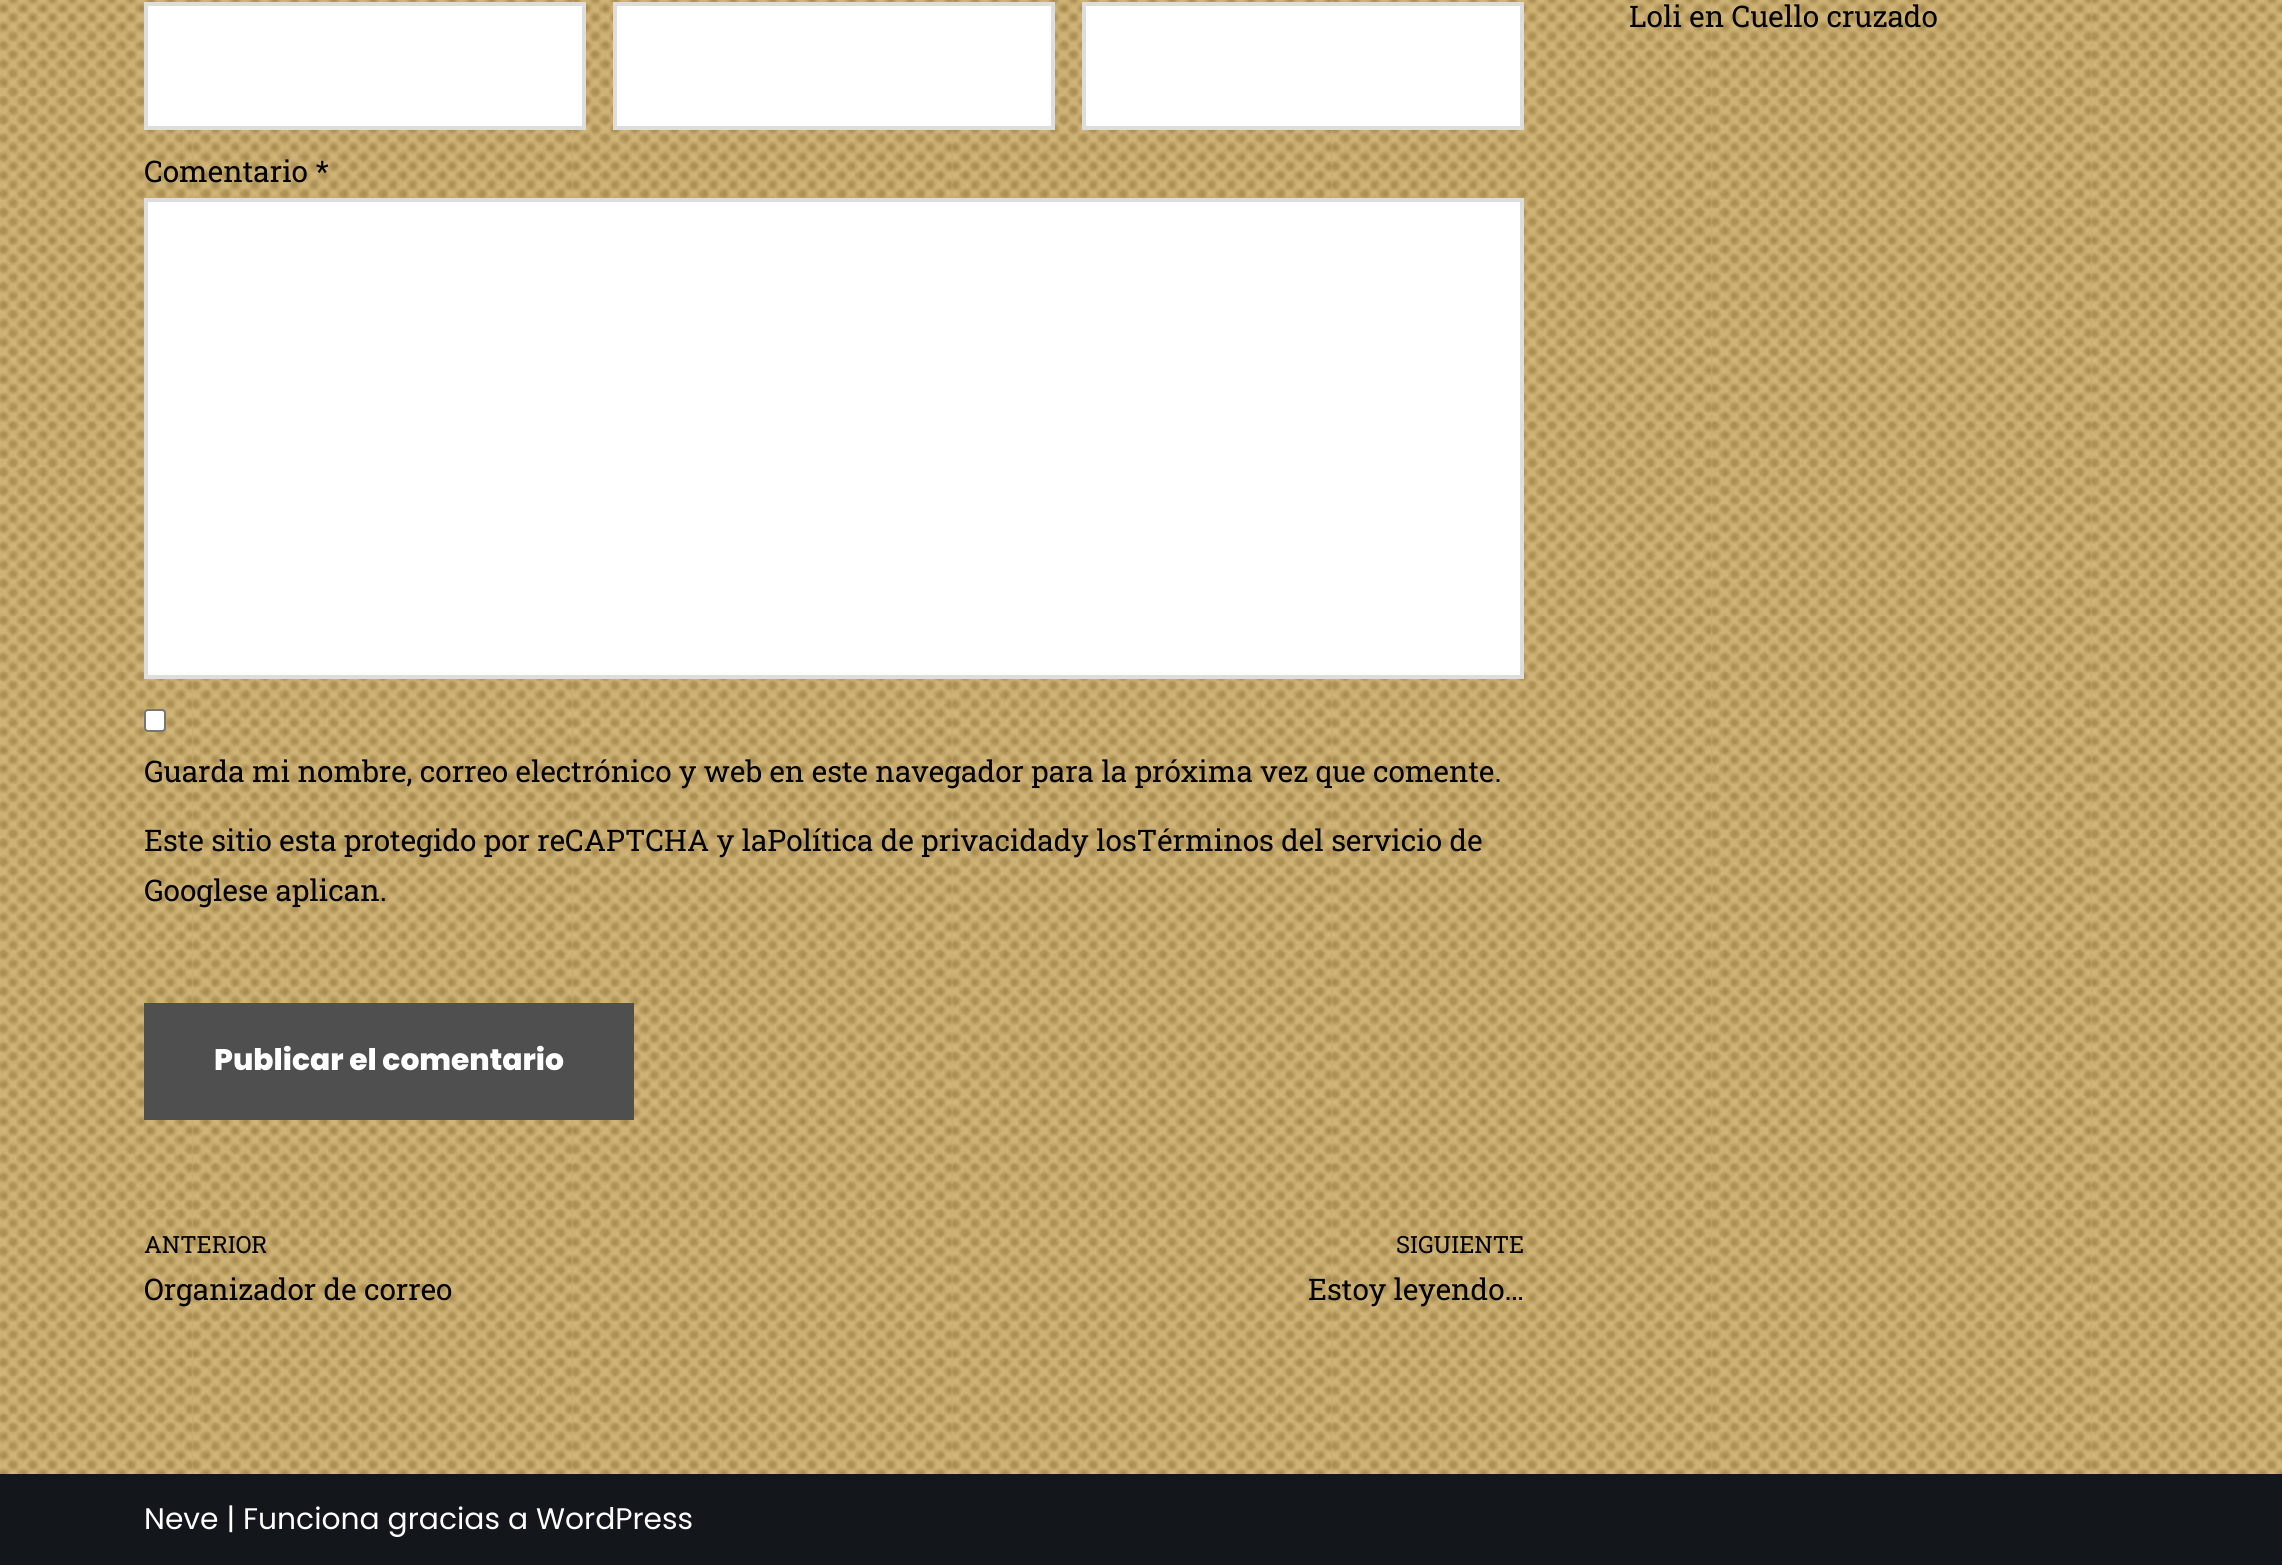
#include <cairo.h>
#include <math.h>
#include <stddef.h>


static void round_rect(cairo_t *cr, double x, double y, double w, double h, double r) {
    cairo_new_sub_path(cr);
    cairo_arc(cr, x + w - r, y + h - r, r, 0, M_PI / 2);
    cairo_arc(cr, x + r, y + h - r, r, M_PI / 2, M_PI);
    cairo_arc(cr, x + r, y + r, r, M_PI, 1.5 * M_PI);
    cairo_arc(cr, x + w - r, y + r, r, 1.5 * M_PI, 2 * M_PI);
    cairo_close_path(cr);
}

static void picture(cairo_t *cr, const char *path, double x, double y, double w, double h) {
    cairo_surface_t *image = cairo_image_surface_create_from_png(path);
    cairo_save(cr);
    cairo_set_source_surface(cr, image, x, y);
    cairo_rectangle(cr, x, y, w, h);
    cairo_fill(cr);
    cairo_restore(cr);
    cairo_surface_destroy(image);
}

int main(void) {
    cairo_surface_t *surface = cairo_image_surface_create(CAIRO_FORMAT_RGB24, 2282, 1565);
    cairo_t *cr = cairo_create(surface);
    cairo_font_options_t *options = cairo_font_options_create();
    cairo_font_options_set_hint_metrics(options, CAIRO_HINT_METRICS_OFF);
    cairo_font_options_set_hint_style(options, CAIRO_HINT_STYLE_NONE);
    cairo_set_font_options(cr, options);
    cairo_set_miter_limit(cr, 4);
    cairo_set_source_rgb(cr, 1, 1, 1);
    cairo_paint(cr);
    picture(cr, "img1.png", 0, 0, 2282, 1474);
    cairo_select_font_face(cr, "Roboto Slab", CAIRO_FONT_SLANT_NORMAL, CAIRO_FONT_WEIGHT_NORMAL);
    cairo_set_font_size(cr, 29.75);
    cairo_set_source_rgb(cr, 0, 0, 0);
    cairo_move_to(cr, 1629, 27);
    cairo_show_text(cr, "Loli en Cuello cruzado");
    cairo_set_source_rgb(cr, 1, 1, 1);
    cairo_rectangle(cr, 146, 4, 438, 124);
    cairo_fill_preserve(cr);
    cairo_set_source_rgb(cr, 0.867, 0.867, 0.867);
    cairo_set_line_width(cr, 4);
    cairo_stroke(cr);
    cairo_set_source_rgb(cr, 1, 1, 1);
    cairo_rectangle(cr, 615, 4, 438, 124);
    cairo_fill_preserve(cr);
    cairo_set_source_rgb(cr, 0.867, 0.867, 0.867);
    cairo_stroke(cr);
    cairo_set_source_rgb(cr, 1, 1, 1);
    cairo_rectangle(cr, 1084, 4, 438, 124);
    cairo_fill_preserve(cr);
    cairo_set_source_rgb(cr, 0.867, 0.867, 0.867);
    cairo_stroke(cr);
    cairo_set_source_rgb(cr, 0, 0, 0);
    cairo_move_to(cr, 144, 182);
    cairo_show_text(cr, "Comentario *");
    cairo_set_source_rgb(cr, 1, 1, 1);
    cairo_rectangle(cr, 146, 200, 1376, 477);
    cairo_fill_preserve(cr);
    cairo_set_source_rgb(cr, 0.867, 0.867, 0.867);
    cairo_stroke(cr);
    cairo_set_source_rgb(cr, 1, 1, 1);
    round_rect(cr, 145, 710, 20, 21, 3);
    cairo_fill_preserve(cr);
    cairo_set_source_rgb(cr, 0.463, 0.463, 0.463);
    cairo_set_line_width(cr, 2);
    cairo_stroke(cr);
    cairo_set_source_rgb(cr, 0, 0, 0);
    cairo_move_to(cr, 144, 782);
    cairo_show_text(cr, "Guarda mi nombre, correo electrónico y web en este navegador para la próxima vez que comente.");
    cairo_move_to(cr, 144, 851);
    cairo_show_text(cr, "Este sitio esta protegido por reCAPTCHA y laPolítica de privacidady losTérminos del servicio de");
    cairo_move_to(cr, 144, 901);
    cairo_show_text(cr, "Googlese aplican.");
    cairo_set_source_rgb(cr, 0.31, 0.31, 0.31);
    cairo_rectangle(cr, 144, 1003, 490, 117);
    cairo_fill(cr);
    cairo_select_font_face(cr, "Poppins ExtraBold", CAIRO_FONT_SLANT_NORMAL, CAIRO_FONT_WEIGHT_NORMAL);
    cairo_set_source_rgb(cr, 1, 1, 1);
    cairo_move_to(cr, 214, 1070);
    cairo_show_text(cr, "Publicar el comentario");
    cairo_select_font_face(cr, "Roboto Slab", CAIRO_FONT_SLANT_NORMAL, CAIRO_FONT_WEIGHT_NORMAL);
    cairo_set_font_size(cr, 23.75);
    cairo_set_source_rgb(cr, 0, 0, 0);
    cairo_move_to(cr, 144, 1253);
    cairo_show_text(cr, "ANTERIOR");
    cairo_set_font_size(cr, 29.75);
    cairo_move_to(cr, 144, 1300);
    cairo_show_text(cr, "Organizador de correo");
    cairo_set_font_size(cr, 23.75);
    cairo_move_to(cr, 1396, 1253);
    cairo_show_text(cr, "SIGUIENTE");
    cairo_set_font_size(cr, 29.75);
    cairo_move_to(cr, 1308, 1300);
    cairo_show_text(cr, "Estoy leyendo…");
    cairo_set_source_rgb(cr, 0.078, 0.09, 0.11);
    cairo_rectangle(cr, 0, 1474, 2282, 91);
    cairo_fill(cr);
    cairo_select_font_face(cr, "Poppins", CAIRO_FONT_SLANT_NORMAL, CAIRO_FONT_WEIGHT_NORMAL);
    cairo_set_source_rgb(cr, 1, 1, 1);
    cairo_move_to(cr, 144, 1529);
    cairo_show_text(cr, "Neve | Funciona gracias a WordPress");
    cairo_surface_write_to_png(surface, "page.png");
    cairo_font_options_destroy(options);
    cairo_destroy(cr);
    cairo_surface_destroy(surface);
    return 0;
}
